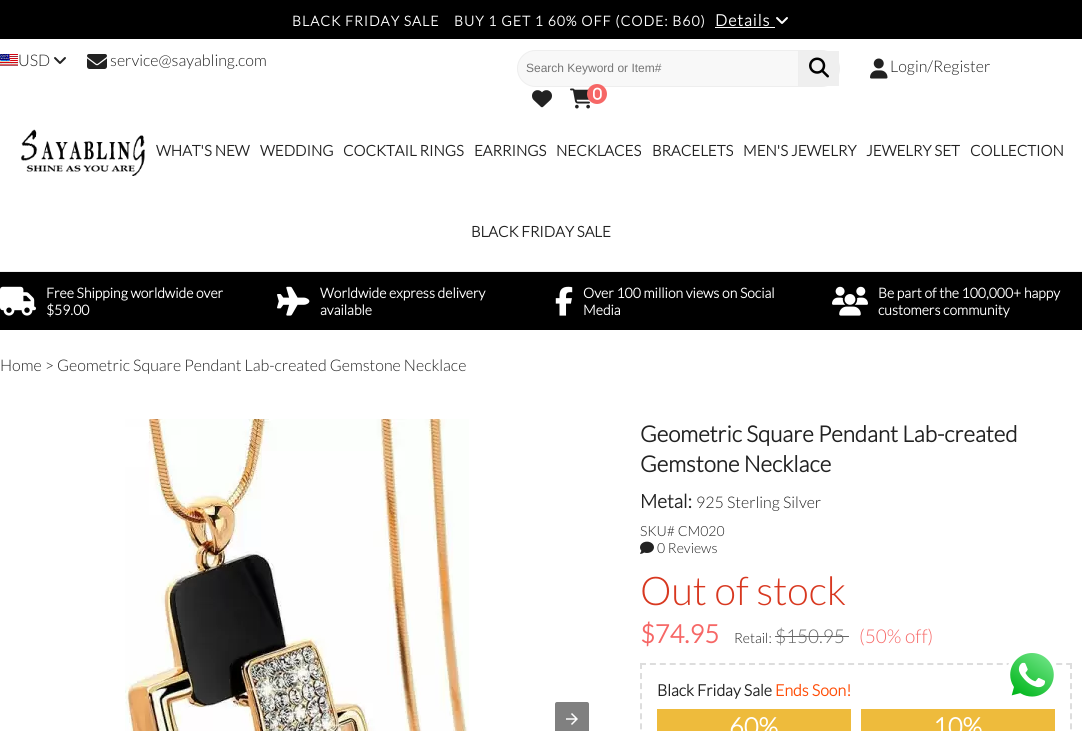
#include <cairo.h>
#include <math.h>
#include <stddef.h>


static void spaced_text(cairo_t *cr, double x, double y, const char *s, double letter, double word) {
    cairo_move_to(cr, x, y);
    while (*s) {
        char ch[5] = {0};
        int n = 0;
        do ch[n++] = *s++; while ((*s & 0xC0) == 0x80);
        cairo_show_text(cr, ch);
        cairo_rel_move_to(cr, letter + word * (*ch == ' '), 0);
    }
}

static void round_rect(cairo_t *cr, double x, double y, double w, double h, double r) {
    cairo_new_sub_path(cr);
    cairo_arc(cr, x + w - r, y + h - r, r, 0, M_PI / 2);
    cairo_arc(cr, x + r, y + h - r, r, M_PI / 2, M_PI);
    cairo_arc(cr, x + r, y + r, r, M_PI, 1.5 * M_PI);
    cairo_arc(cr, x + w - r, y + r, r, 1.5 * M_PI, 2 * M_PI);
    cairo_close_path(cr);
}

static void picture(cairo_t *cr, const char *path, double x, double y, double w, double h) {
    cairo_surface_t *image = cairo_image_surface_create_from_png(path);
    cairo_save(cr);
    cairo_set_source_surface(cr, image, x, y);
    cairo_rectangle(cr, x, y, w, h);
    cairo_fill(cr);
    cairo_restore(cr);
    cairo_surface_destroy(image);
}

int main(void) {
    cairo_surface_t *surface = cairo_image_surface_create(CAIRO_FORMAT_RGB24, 1082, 731);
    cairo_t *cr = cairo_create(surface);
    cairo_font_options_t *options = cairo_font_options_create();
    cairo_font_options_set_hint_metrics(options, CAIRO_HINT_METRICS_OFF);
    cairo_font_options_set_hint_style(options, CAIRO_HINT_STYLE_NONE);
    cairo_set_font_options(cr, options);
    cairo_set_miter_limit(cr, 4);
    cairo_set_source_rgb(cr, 1, 1, 1);
    cairo_paint(cr);
    cairo_set_source_rgb(cr, 0, 0, 0);
    cairo_rectangle(cr, 0, 0, 1082, 39);
    cairo_fill(cr);
    cairo_select_font_face(cr, "Lato", CAIRO_FONT_SLANT_NORMAL, CAIRO_FONT_WEIGHT_BOLD);
    cairo_set_font_size(cr, 14);
    cairo_set_source_rgb(cr, 1, 1, 1);
    spaced_text(cr, 292, 26, "BLACK FRIDAY SALE", 1, 0);
    spaced_text(cr, 454, 26, "BUY 1 GET 1 60% OFF (CODE: B60)", 1, 0);
    cairo_set_font_size(cr, 16);
    spaced_text(cr, 715, 26, "Details", 1, 0);
    cairo_rectangle(cr, 715, 27, 60, 1);
    cairo_fill(cr);
    picture(cr, "img1.png", 776, 17, 12, 7);
    picture(cr, "img2.png", 0, 54, 18, 12);
    cairo_select_font_face(cr, "Lato Light", CAIRO_FONT_SLANT_NORMAL, CAIRO_FONT_WEIGHT_NORMAL);
    cairo_set_source_rgb(cr, 0.133, 0.133, 0.133);
    cairo_move_to(cr, 18, 66);
    cairo_show_text(cr, "USD");
    picture(cr, "img3.png", 54, 57, 12, 7);
    picture(cr, "img4.png", 87, 54, 20, 15);
    cairo_move_to(cr, 110, 66);
    cairo_show_text(cr, "service@sayabling.com");
    cairo_set_source_rgb(cr, 0.969, 0.969, 0.969);
    round_rect(cr, 517.5, 50.5, 322, 36, 18);
    cairo_fill_preserve(cr);
    cairo_set_source_rgb(cr, 0.933, 0.933, 0.933);
    cairo_set_line_width(cr, 1);
    cairo_stroke(cr);
    cairo_rectangle(cr, 798, 51, 1, 35);
    cairo_fill(cr);
    cairo_select_font_face(cr, "Liberation Sans", CAIRO_FONT_SLANT_NORMAL, CAIRO_FONT_WEIGHT_NORMAL);
    cairo_set_font_size(cr, 12);
    cairo_set_source_rgb(cr, 0.459, 0.459, 0.459);
    cairo_move_to(cr, 526, 72);
    cairo_show_text(cr, "Search Keyword or Item#");
    cairo_set_source_rgb(cr, 0.937, 0.937, 0.937);
    cairo_rectangle(cr, 799, 51, 40, 35);
    cairo_fill(cr);
    picture(cr, "img5.png", 809, 57, 20, 21);
    picture(cr, "img6.png", 870, 58, 18, 21);
    cairo_select_font_face(cr, "Lato Light", CAIRO_FONT_SLANT_NORMAL, CAIRO_FONT_WEIGHT_NORMAL);
    cairo_set_font_size(cr, 16);
    cairo_set_source_rgb(cr, 0.133, 0.133, 0.133);
    cairo_move_to(cr, 890, 72);
    cairo_show_text(cr, "Login/Register");
    picture(cr, "img7.png", 532, 90, 20, 18);
    picture(cr, "img8.png", 570, 88, 20, 21);
    cairo_set_source_rgb(cr, 0.961, 0.404, 0.4);
    cairo_arc(cr, 597, 94, 10, 0, 2 * M_PI);
    cairo_fill(cr);
    picture(cr, "img9.png", 593, 87, 9, 13);
    cairo_set_source_rgb(cr, 0.933, 0.933, 0.933);
    cairo_rectangle(cr, 0, 271, 1082, 1);
    cairo_fill(cr);
    picture(cr, "img10.png", 21, 129, 124, 47);
    cairo_select_font_face(cr, "Lato", CAIRO_FONT_SLANT_NORMAL, CAIRO_FONT_WEIGHT_BOLD);
    cairo_set_font_size(cr, 15);
    cairo_set_source_rgb(cr, 0.133, 0.133, 0.133);
    cairo_move_to(cr, 156, 156);
    cairo_show_text(cr, "WHAT'S NEW");
    cairo_move_to(cr, 260, 156);
    cairo_show_text(cr, "WEDDING");
    cairo_move_to(cr, 343, 156);
    cairo_show_text(cr, "COCKTAIL RINGS");
    cairo_move_to(cr, 474, 156);
    cairo_show_text(cr, "EARRINGS");
    cairo_move_to(cr, 556, 156);
    cairo_show_text(cr, "NECKLACES");
    cairo_move_to(cr, 652, 156);
    cairo_show_text(cr, "BRACELETS");
    cairo_move_to(cr, 743, 156);
    cairo_show_text(cr, "MEN'S JEWELRY");
    cairo_move_to(cr, 866, 156);
    cairo_show_text(cr, "JEWELRY SET");
    cairo_move_to(cr, 970, 156);
    cairo_show_text(cr, "COLLECTION");
    cairo_move_to(cr, 471, 237);
    cairo_show_text(cr, "BLACK FRIDAY SALE");
    cairo_set_source_rgb(cr, 0, 0, 0);
    cairo_rectangle(cr, 0, 272, 1082, 58);
    cairo_fill(cr);
    picture(cr, "img11.png", 0, 286, 36, 30);
    cairo_set_font_size(cr, 14);
    cairo_set_source_rgb(cr, 1, 1, 1);
    cairo_move_to(cr, 46, 298);
    cairo_show_text(cr, "Free Shipping worldwide over");
    cairo_move_to(cr, 46, 315);
    cairo_show_text(cr, "$59.00");
    picture(cr, "img12.png", 277, 286, 33, 30);
    cairo_move_to(cr, 320, 298);
    cairo_show_text(cr, "Worldwide express delivery");
    cairo_move_to(cr, 320, 315);
    cairo_show_text(cr, "available");
    picture(cr, "img13.png", 555, 286, 18, 30);
    cairo_move_to(cr, 583, 298);
    cairo_show_text(cr, "Over 100 million views on Social");
    cairo_move_to(cr, 583, 315);
    cairo_show_text(cr, "Media");
    picture(cr, "img14.png", 832, 286, 36, 30);
    cairo_move_to(cr, 878, 298);
    cairo_show_text(cr, "Be part of the 100,000+ happy");
    cairo_move_to(cr, 878, 315);
    cairo_show_text(cr, "customers community");
    cairo_select_font_face(cr, "Lato Light", CAIRO_FONT_SLANT_NORMAL, CAIRO_FONT_WEIGHT_NORMAL);
    cairo_set_font_size(cr, 16);
    cairo_set_source_rgb(cr, 0.133, 0.133, 0.133);
    cairo_move_to(cr, 0, 371);
    cairo_show_text(cr, "Home > Geometric Square Pendant Lab-created Gemstone Necklace");
    picture(cr, "img15.png", 125, 419, 344, 312);
    cairo_set_source_rgb(cr, 0.502, 0.502, 0.502);
    round_rect(cr, 555, 702, 34, 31, 2);
    cairo_fill(cr);
    picture(cr, "img16.png", 566, 713, 12, 12);
    cairo_select_font_face(cr, "Lato", CAIRO_FONT_SLANT_NORMAL, CAIRO_FONT_WEIGHT_BOLD);
    cairo_set_font_size(cr, 22.4);
    cairo_set_source_rgb(cr, 0.133, 0.133, 0.133);
    cairo_move_to(cr, 640, 442);
    cairo_show_text(cr, "Geometric Square Pendant Lab-created");
    cairo_move_to(cr, 640, 472);
    cairo_show_text(cr, "Gemstone Necklace");
    cairo_set_font_size(cr, 19);
    cairo_move_to(cr, 640, 508);
    cairo_show_text(cr, "Metal:");
    cairo_select_font_face(cr, "Lato Light", CAIRO_FONT_SLANT_NORMAL, CAIRO_FONT_WEIGHT_NORMAL);
    cairo_set_font_size(cr, 16);
    cairo_move_to(cr, 696, 508);
    cairo_show_text(cr, "925 Sterling Silver");
    cairo_set_font_size(cr, 14);
    cairo_move_to(cr, 640, 536);
    cairo_show_text(cr, "SKU# CM020");
    picture(cr, "img17.png", 640, 541, 14, 13);
    cairo_move_to(cr, 657, 553);
    cairo_show_text(cr, "0 Reviews");
    cairo_set_font_size(cr, 39.5);
    cairo_set_source_rgb(cr, 0.847, 0.22, 0.125);
    cairo_move_to(cr, 640, 605);
    cairo_show_text(cr, "Out of stock");
    cairo_select_font_face(cr, "Lato", CAIRO_FONT_SLANT_NORMAL, CAIRO_FONT_WEIGHT_BOLD);
    cairo_set_font_size(cr, 25.5);
    cairo_set_source_rgb(cr, 0.961, 0.404, 0.4);
    cairo_move_to(cr, 640, 643);
    cairo_show_text(cr, "$74.95");
    cairo_select_font_face(cr, "Lato Light", CAIRO_FONT_SLANT_NORMAL, CAIRO_FONT_WEIGHT_NORMAL);
    cairo_set_font_size(cr, 14);
    cairo_set_source_rgb(cr, 0.133, 0.133, 0.133);
    cairo_move_to(cr, 734, 643);
    cairo_show_text(cr, "Retail:");
    cairo_set_font_size(cr, 19);
    cairo_set_source_rgb(cr, 0.4, 0.4, 0.4);
    cairo_move_to(cr, 775, 643);
    cairo_show_text(cr, "$150.95");
    cairo_rectangle(cr, 775, 636, 74, 1);
    cairo_fill(cr);
    cairo_set_source_rgb(cr, 0.961, 0.404, 0.4);
    cairo_move_to(cr, 859, 643);
    cairo_show_text(cr, "(50% off)");
    cairo_new_path(cr);
    cairo_move_to(cr, 640, 664);
    cairo_line_to(cr, 1072, 664);
    cairo_set_source_rgb(cr, 0.867, 0.867, 0.867);
    cairo_set_line_width(cr, 2);
    cairo_set_dash(cr, (double[]){6, 3.91}, 2, 0);
    cairo_stroke(cr);
    cairo_new_path(cr);
    cairo_move_to(cr, 1071, 663);
    cairo_line_to(cr, 1071, 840);
    cairo_set_dash(cr, (double[]){6, 4.06}, 2, 0);
    cairo_stroke(cr);
    cairo_new_path(cr);
    cairo_move_to(cr, 641, 663);
    cairo_line_to(cr, 641, 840);
    cairo_stroke(cr);
    cairo_select_font_face(cr, "Lato", CAIRO_FONT_SLANT_NORMAL, CAIRO_FONT_WEIGHT_BOLD);
    cairo_set_font_size(cr, 16);
    cairo_set_source_rgb(cr, 0.133, 0.133, 0.133);
    cairo_move_to(cr, 657, 696);
    cairo_show_text(cr, "Black Friday Sale");
    cairo_set_source_rgb(cr, 1, 0.302, 0.024);
    cairo_move_to(cr, 775, 696);
    cairo_show_text(cr, "Ends Soon!");
    cairo_set_source_rgb(cr, 0.933, 0.733, 0.235);
    cairo_rectangle(cr, 657, 709, 194, 22);
    cairo_fill(cr);
    cairo_set_font_size(cr, 25.5);
    cairo_set_source_rgb(cr, 1, 1, 1);
    cairo_move_to(cr, 729, 736);
    cairo_show_text(cr, "60%");
    cairo_set_source_rgb(cr, 0.933, 0.733, 0.235);
    cairo_rectangle(cr, 861, 709, 194, 22);
    cairo_fill(cr);
    cairo_set_source_rgb(cr, 1, 1, 1);
    cairo_move_to(cr, 933, 736);
    cairo_show_text(cr, "10%");
    picture(cr, "img18.png", 1008, 653, 46, 44);
    cairo_surface_write_to_png(surface, "page.png");
    cairo_font_options_destroy(options);
    cairo_destroy(cr);
    cairo_surface_destroy(surface);
    return 0;
}
